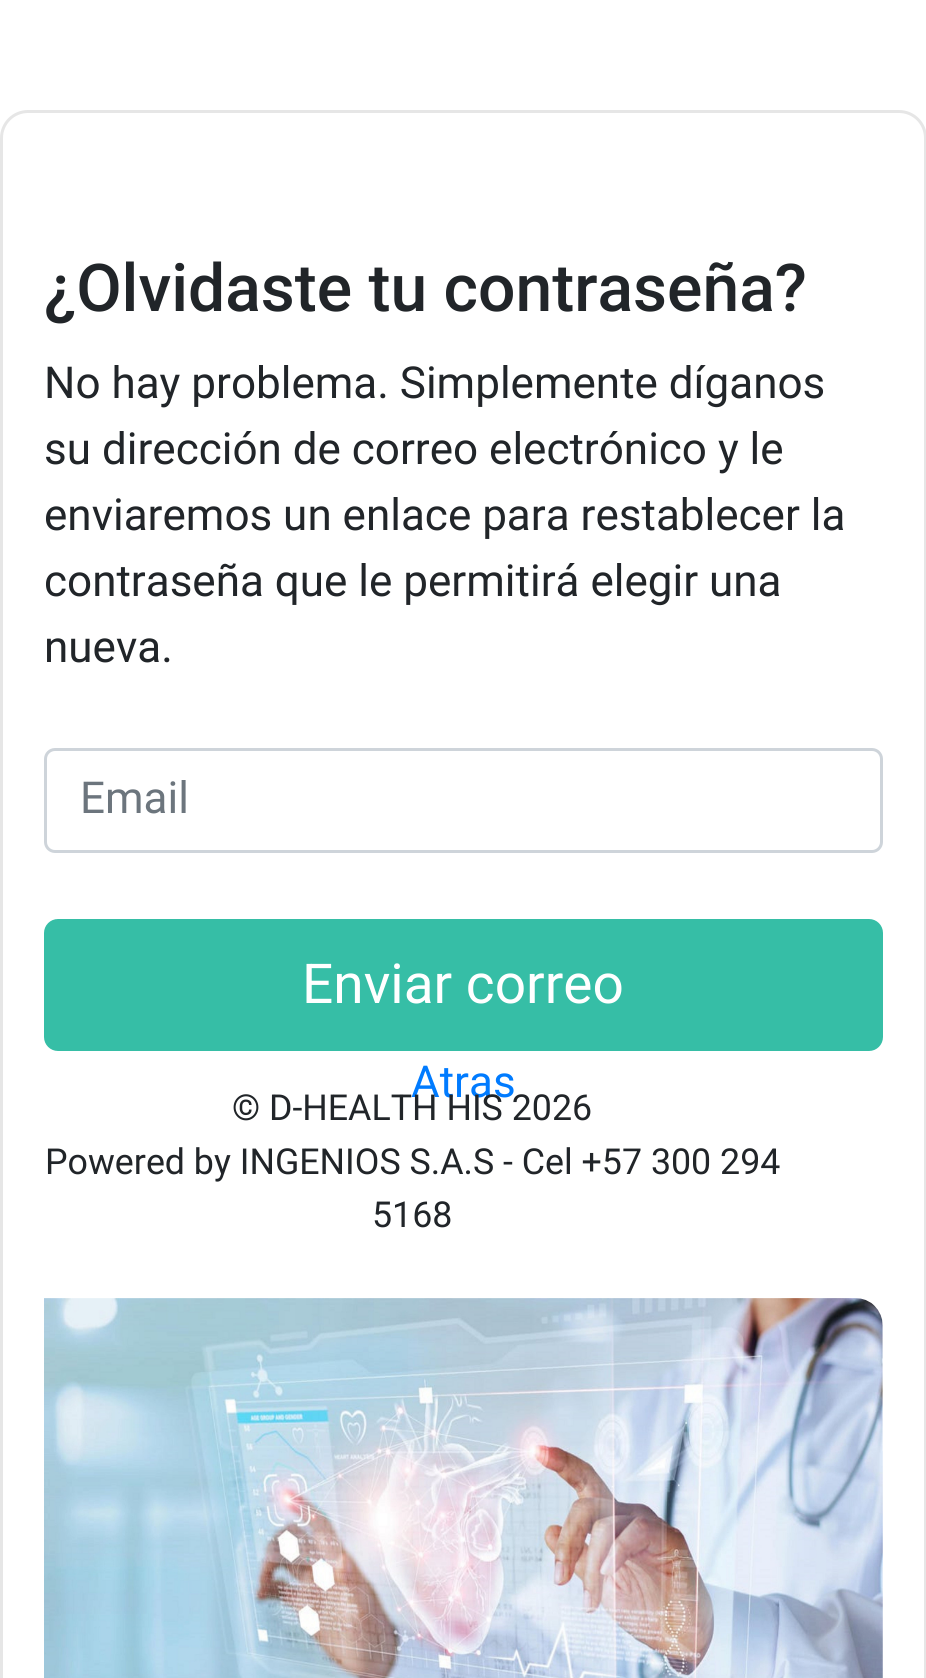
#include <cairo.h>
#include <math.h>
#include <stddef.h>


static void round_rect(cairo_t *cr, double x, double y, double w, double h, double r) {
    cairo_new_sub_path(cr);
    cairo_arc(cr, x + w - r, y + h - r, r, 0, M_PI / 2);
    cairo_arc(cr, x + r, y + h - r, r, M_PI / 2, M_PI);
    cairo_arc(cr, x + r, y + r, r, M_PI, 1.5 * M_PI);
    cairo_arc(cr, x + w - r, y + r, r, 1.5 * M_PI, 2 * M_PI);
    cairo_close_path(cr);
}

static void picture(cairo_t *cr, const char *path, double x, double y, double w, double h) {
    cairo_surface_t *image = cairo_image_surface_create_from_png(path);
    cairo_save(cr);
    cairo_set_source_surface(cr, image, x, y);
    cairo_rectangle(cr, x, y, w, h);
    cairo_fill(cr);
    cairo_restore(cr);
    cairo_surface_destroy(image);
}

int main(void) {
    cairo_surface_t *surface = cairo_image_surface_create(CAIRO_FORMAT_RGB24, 926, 1678);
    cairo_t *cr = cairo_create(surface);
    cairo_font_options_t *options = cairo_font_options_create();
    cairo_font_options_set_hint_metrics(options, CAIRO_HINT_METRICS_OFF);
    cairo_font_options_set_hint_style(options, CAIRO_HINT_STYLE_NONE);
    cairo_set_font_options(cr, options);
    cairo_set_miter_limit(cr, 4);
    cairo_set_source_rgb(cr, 1, 1, 1);
    cairo_paint(cr);
    round_rect(cr, 1.5, 111.5, 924, 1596, 26.5);
    cairo_set_source_rgb(cr, 0.902, 0.902, 0.902);
    cairo_set_line_width(cr, 3);
    cairo_stroke(cr);
    cairo_select_font_face(cr, "Roboto Medium", CAIRO_FONT_SLANT_NORMAL, CAIRO_FONT_WEIGHT_NORMAL);
    cairo_set_font_size(cr, 66);
    cairo_set_source_rgb(cr, 0.129, 0.145, 0.161);
    cairo_move_to(cr, 44, 311);
    cairo_show_text(cr, "¿Olvidaste tu contraseña?");
    cairo_select_font_face(cr, "Roboto", CAIRO_FONT_SLANT_NORMAL, CAIRO_FONT_WEIGHT_NORMAL);
    cairo_set_font_size(cr, 44);
    cairo_move_to(cr, 44, 398);
    cairo_show_text(cr, "No hay problema. Simplemente díganos");
    cairo_move_to(cr, 44, 464);
    cairo_show_text(cr, "su dirección de correo electrónico y le");
    cairo_move_to(cr, 44, 530);
    cairo_show_text(cr, "enviaremos un enlace para restablecer la");
    cairo_move_to(cr, 44, 596);
    cairo_show_text(cr, "contraseña que le permitirá elegir una");
    cairo_move_to(cr, 44, 662);
    cairo_show_text(cr, "nueva.");
    round_rect(cr, 45.5, 749.5, 836, 102, 9.5);
    cairo_set_source_rgb(cr, 0.808, 0.831, 0.855);
    cairo_stroke(cr);
    cairo_set_source_rgb(cr, 0.424, 0.459, 0.49);
    cairo_move_to(cr, 80, 813);
    cairo_show_text(cr, "Email");
    cairo_set_source_rgb(cr, 0.212, 0.745, 0.651);
    round_rect(cr, 45.5, 920.5, 836, 129, 12.5);
    cairo_fill_preserve(cr);
    cairo_stroke(cr);
    cairo_set_font_size(cr, 55);
    cairo_set_source_rgb(cr, 1, 1, 1);
    cairo_move_to(cr, 302, 1003);
    cairo_show_text(cr, "Enviar correo");
    cairo_set_font_size(cr, 44);
    cairo_set_source_rgb(cr, 0, 0.482, 1);
    cairo_move_to(cr, 411, 1097);
    cairo_show_text(cr, "Atras");
    cairo_set_font_size(cr, 35.75);
    cairo_set_source_rgb(cr, 0.129, 0.145, 0.161);
    cairo_move_to(cr, 232, 1120);
    cairo_show_text(cr, "© D-HEALTH HIS 2026");
    cairo_move_to(cr, 45, 1174);
    cairo_show_text(cr, "Powered by INGENIOS S.A.S - Cel +57 300 294");
    cairo_move_to(cr, 372, 1227);
    cairo_show_text(cr, "5168");
    picture(cr, "img1.png", 44, 1298, 839, 380);
    cairo_surface_write_to_png(surface, "page.png");
    cairo_font_options_destroy(options);
    cairo_destroy(cr);
    cairo_surface_destroy(surface);
    return 0;
}
